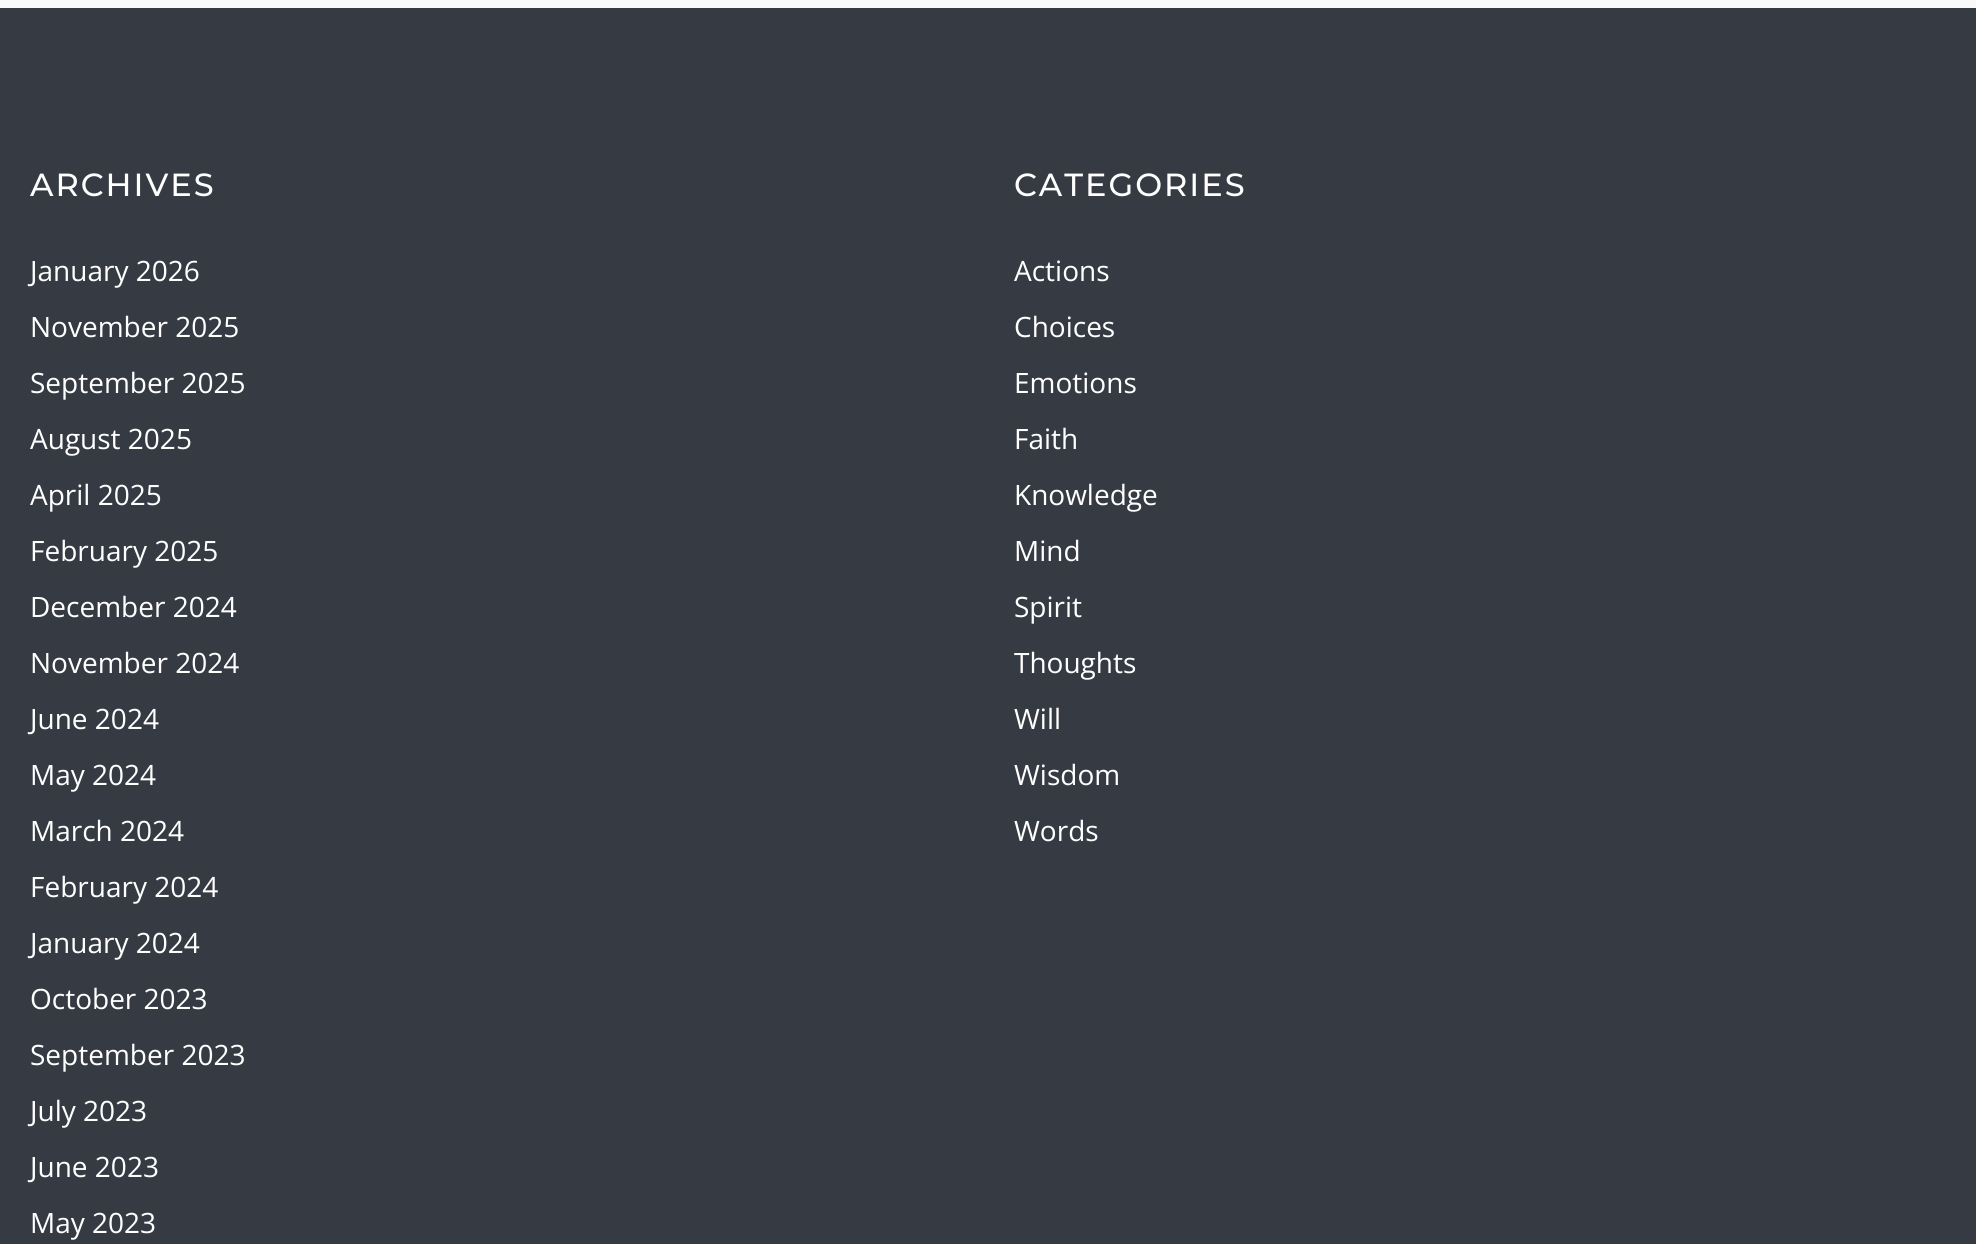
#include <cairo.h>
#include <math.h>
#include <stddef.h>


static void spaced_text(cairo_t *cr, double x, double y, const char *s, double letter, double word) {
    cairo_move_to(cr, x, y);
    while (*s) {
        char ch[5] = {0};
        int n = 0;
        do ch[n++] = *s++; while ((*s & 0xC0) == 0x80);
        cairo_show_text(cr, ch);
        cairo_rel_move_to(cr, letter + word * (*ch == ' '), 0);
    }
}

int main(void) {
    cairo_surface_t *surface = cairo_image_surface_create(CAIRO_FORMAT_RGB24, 1976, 1244);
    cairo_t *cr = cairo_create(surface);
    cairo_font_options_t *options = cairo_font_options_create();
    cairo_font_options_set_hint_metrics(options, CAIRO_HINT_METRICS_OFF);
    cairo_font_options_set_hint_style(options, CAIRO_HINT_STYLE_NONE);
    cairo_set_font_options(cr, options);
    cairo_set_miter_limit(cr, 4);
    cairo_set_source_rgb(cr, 0.976, 0.976, 0.976);
    cairo_paint(cr);
    cairo_set_source_rgb(cr, 0.212, 0.227, 0.263);
    cairo_rectangle(cr, 0, 8, 1976, 1236);
    cairo_fill(cr);
    cairo_select_font_face(cr, "Montserrat Medium", CAIRO_FONT_SLANT_NORMAL, CAIRO_FONT_WEIGHT_NORMAL);
    cairo_set_font_size(cr, 32);
    cairo_set_source_rgb(cr, 1, 1, 1);
    spaced_text(cr, 30, 196, "ARCHIVES", 2, 0);
    cairo_select_font_face(cr, "Open Sans", CAIRO_FONT_SLANT_NORMAL, CAIRO_FONT_WEIGHT_NORMAL);
    cairo_set_font_size(cr, 28);
    cairo_move_to(cr, 30, 281);
    cairo_show_text(cr, "January 2026");
    cairo_move_to(cr, 30, 337);
    cairo_show_text(cr, "November 2025");
    cairo_move_to(cr, 30, 393);
    cairo_show_text(cr, "September 2025");
    cairo_move_to(cr, 30, 449);
    cairo_show_text(cr, "August 2025");
    cairo_move_to(cr, 30, 505);
    cairo_show_text(cr, "April 2025");
    cairo_move_to(cr, 30, 561);
    cairo_show_text(cr, "February 2025");
    cairo_move_to(cr, 30, 617);
    cairo_show_text(cr, "December 2024");
    cairo_move_to(cr, 30, 673);
    cairo_show_text(cr, "November 2024");
    cairo_move_to(cr, 30, 729);
    cairo_show_text(cr, "June 2024");
    cairo_move_to(cr, 30, 785);
    cairo_show_text(cr, "May 2024");
    cairo_move_to(cr, 30, 841);
    cairo_show_text(cr, "March 2024");
    cairo_move_to(cr, 30, 897);
    cairo_show_text(cr, "February 2024");
    cairo_move_to(cr, 30, 953);
    cairo_show_text(cr, "January 2024");
    cairo_move_to(cr, 30, 1009);
    cairo_show_text(cr, "October 2023");
    cairo_move_to(cr, 30, 1065);
    cairo_show_text(cr, "September 2023");
    cairo_move_to(cr, 30, 1121);
    cairo_show_text(cr, "July 2023");
    cairo_move_to(cr, 30, 1177);
    cairo_show_text(cr, "June 2023");
    cairo_move_to(cr, 30, 1233);
    cairo_show_text(cr, "May 2023");
    cairo_select_font_face(cr, "Montserrat Medium", CAIRO_FONT_SLANT_NORMAL, CAIRO_FONT_WEIGHT_NORMAL);
    cairo_set_font_size(cr, 32);
    spaced_text(cr, 1014, 196, "CATEGORIES", 2, 0);
    cairo_select_font_face(cr, "Open Sans", CAIRO_FONT_SLANT_NORMAL, CAIRO_FONT_WEIGHT_NORMAL);
    cairo_set_font_size(cr, 28);
    cairo_move_to(cr, 1014, 281);
    cairo_show_text(cr, "Actions");
    cairo_move_to(cr, 1014, 337);
    cairo_show_text(cr, "Choices");
    cairo_move_to(cr, 1014, 393);
    cairo_show_text(cr, "Emotions");
    cairo_move_to(cr, 1014, 449);
    cairo_show_text(cr, "Faith");
    cairo_move_to(cr, 1014, 505);
    cairo_show_text(cr, "Knowledge");
    cairo_move_to(cr, 1014, 561);
    cairo_show_text(cr, "Mind");
    cairo_move_to(cr, 1014, 617);
    cairo_show_text(cr, "Spirit");
    cairo_move_to(cr, 1014, 673);
    cairo_show_text(cr, "Thoughts");
    cairo_move_to(cr, 1014, 729);
    cairo_show_text(cr, "Will");
    cairo_move_to(cr, 1014, 785);
    cairo_show_text(cr, "Wisdom");
    cairo_move_to(cr, 1014, 841);
    cairo_show_text(cr, "Words");
    cairo_surface_write_to_png(surface, "page.png");
    cairo_font_options_destroy(options);
    cairo_destroy(cr);
    cairo_surface_destroy(surface);
    return 0;
}
